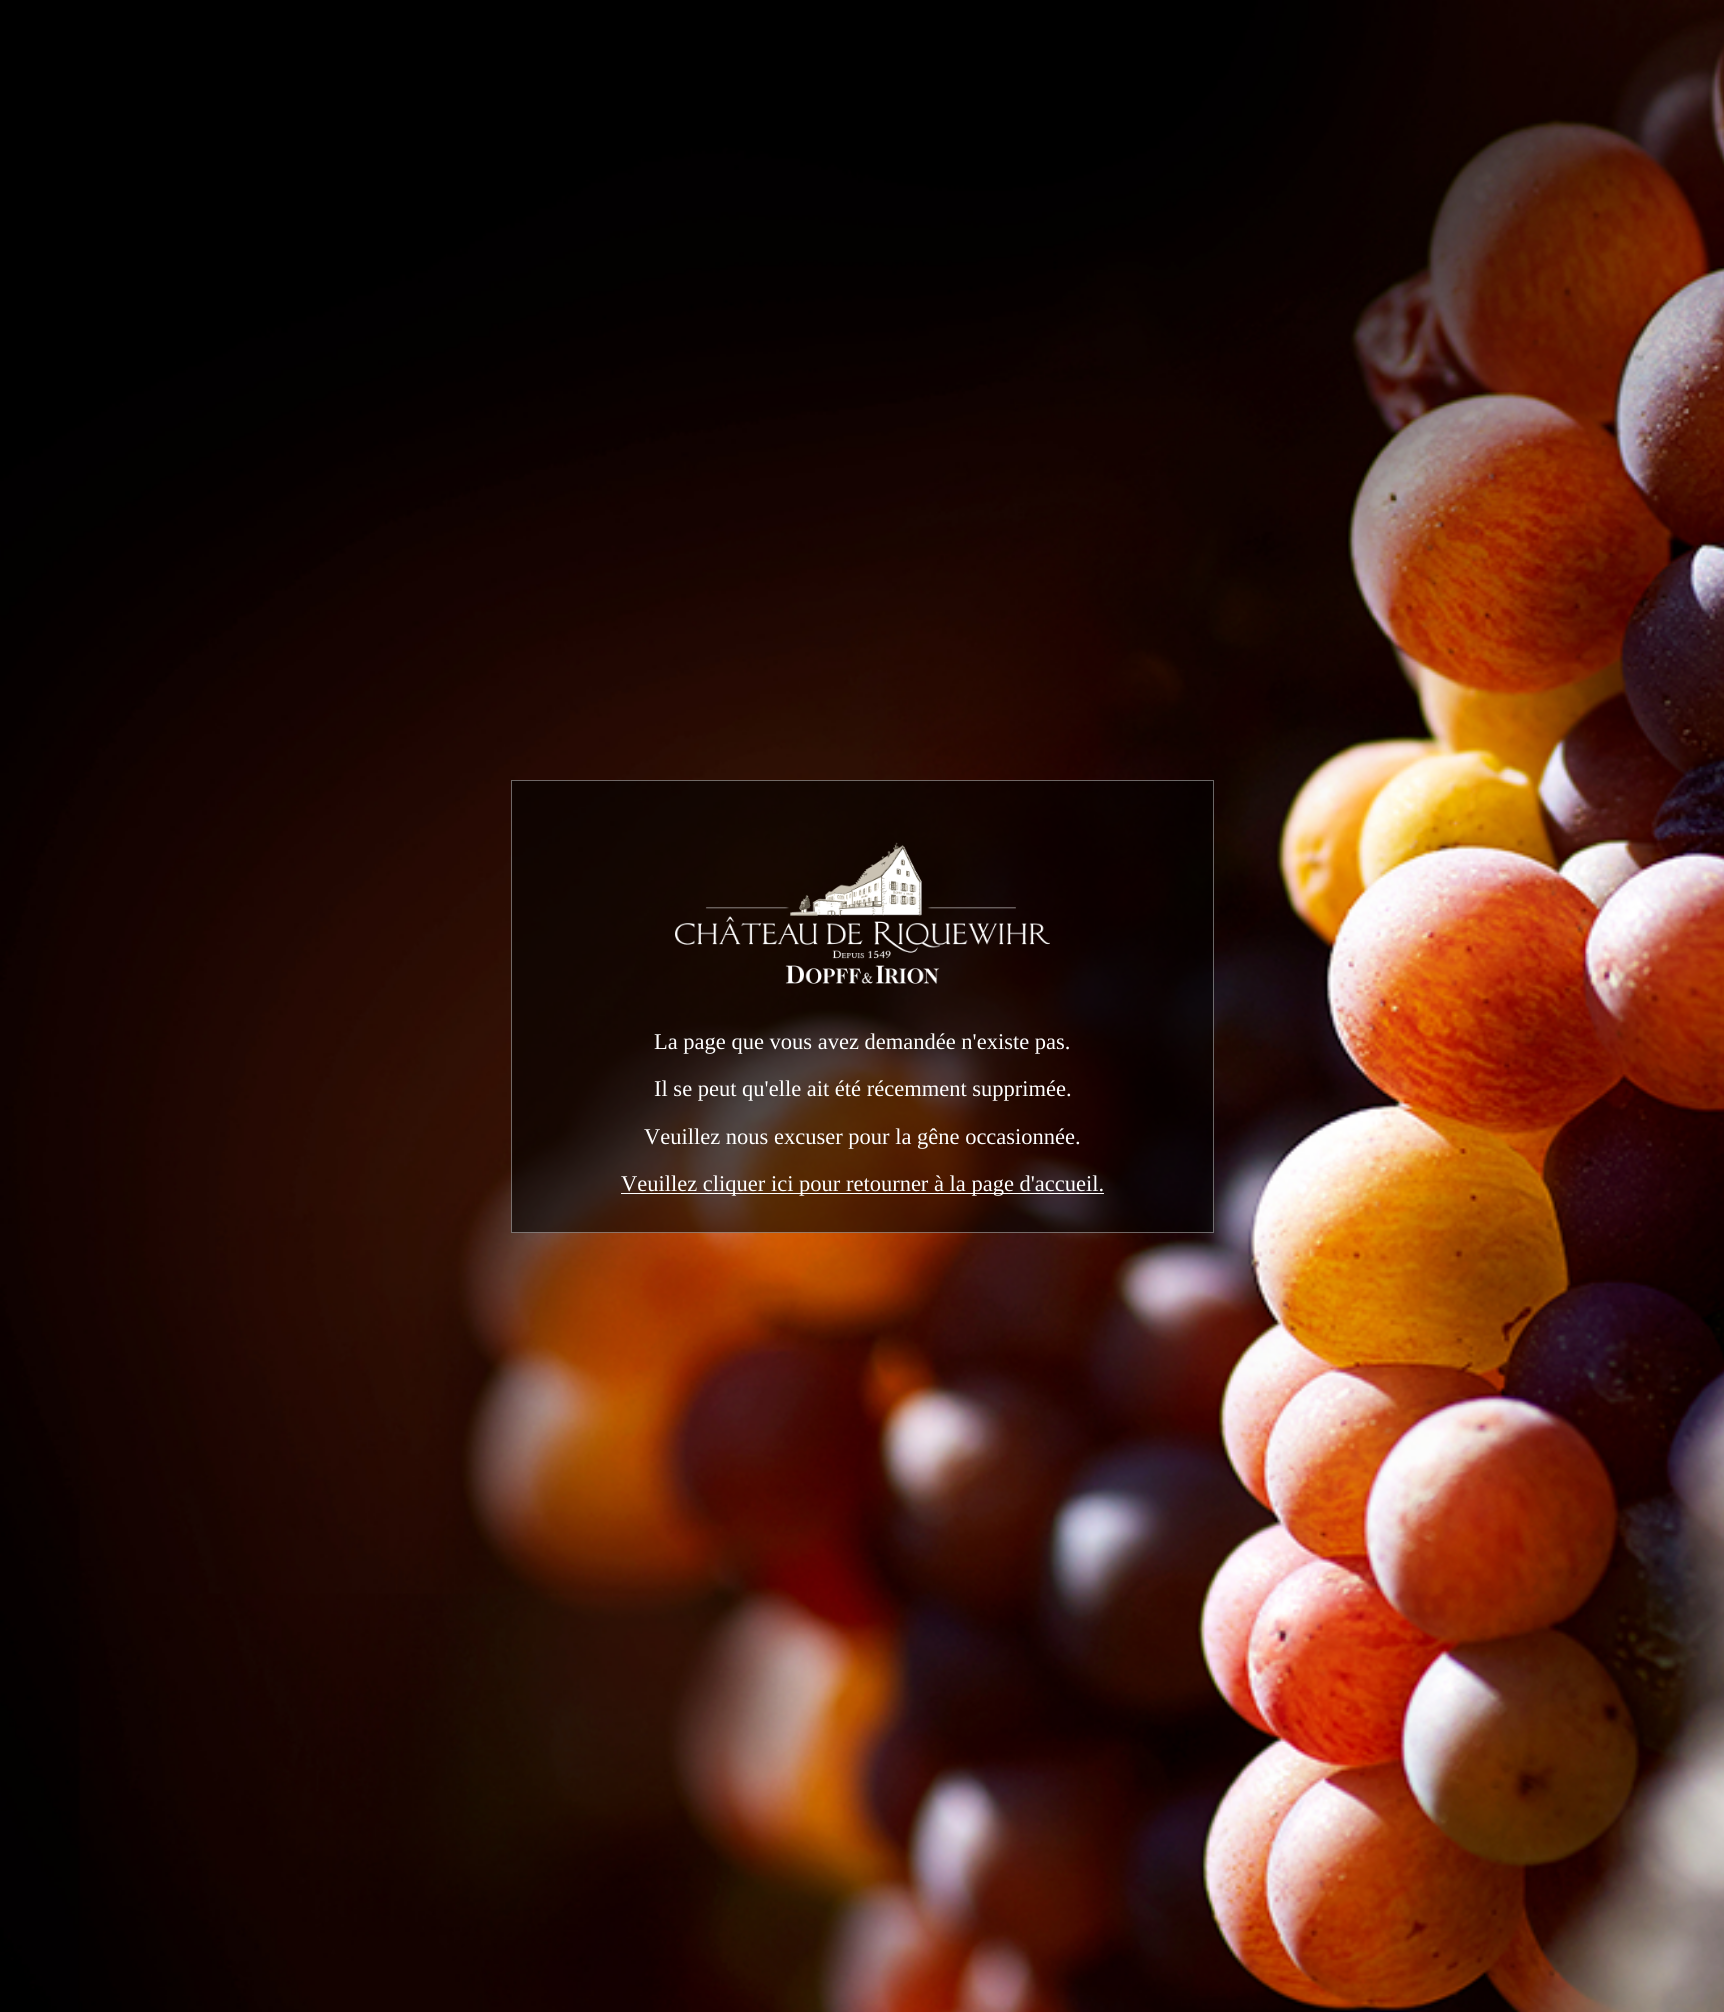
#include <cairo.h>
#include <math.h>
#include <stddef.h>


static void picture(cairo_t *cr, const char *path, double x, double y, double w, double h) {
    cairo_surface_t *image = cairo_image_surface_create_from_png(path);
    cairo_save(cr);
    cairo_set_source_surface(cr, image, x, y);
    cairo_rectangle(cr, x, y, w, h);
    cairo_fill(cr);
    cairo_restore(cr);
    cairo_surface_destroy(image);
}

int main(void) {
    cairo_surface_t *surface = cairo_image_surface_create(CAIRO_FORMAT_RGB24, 1724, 2012);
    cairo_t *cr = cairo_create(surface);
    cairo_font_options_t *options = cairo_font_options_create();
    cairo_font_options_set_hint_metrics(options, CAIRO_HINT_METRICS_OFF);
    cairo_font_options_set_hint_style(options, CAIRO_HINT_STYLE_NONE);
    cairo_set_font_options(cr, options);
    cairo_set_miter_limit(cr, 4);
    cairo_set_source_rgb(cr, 1, 1, 1);
    cairo_paint(cr);
    picture(cr, "img1.png", 0, 0, 1724, 2012);
    cairo_set_source_rgba(cr, 0, 0, 0, 0.6);
    cairo_rectangle(cr, 511, 780, 703, 453);
    cairo_fill(cr);
    cairo_rectangle(cr, 511.5, 780.5, 702, 452);
    cairo_set_source_rgba(cr, 1, 1, 1, 0.4);
    cairo_set_line_width(cr, 1);
    cairo_stroke(cr);
    picture(cr, "img2.png", 675, 842, 375, 142);
    cairo_select_font_face(cr, "Liberation Serif", CAIRO_FONT_SLANT_NORMAL, CAIRO_FONT_WEIGHT_NORMAL);
    cairo_set_font_size(cr, 22.5);
    cairo_set_source_rgb(cr, 1, 1, 1);
    cairo_move_to(cr, 654, 1049);
    cairo_show_text(cr, "La page que vous avez demandée n'existe pas.");
    cairo_move_to(cr, 654, 1096);
    cairo_show_text(cr, "Il se peut qu'elle ait été récemment supprimée.");
    cairo_move_to(cr, 644, 1144);
    cairo_show_text(cr, "Veuillez nous excuser pour la gêne occasionnée.");
    cairo_rectangle(cr, 621, 1193, 483, 1);
    cairo_fill(cr);
    cairo_move_to(cr, 621, 1191);
    cairo_show_text(cr, "Veuillez cliquer ici pour retourner à la page d'accueil.");
    cairo_surface_write_to_png(surface, "page.png");
    cairo_font_options_destroy(options);
    cairo_destroy(cr);
    cairo_surface_destroy(surface);
    return 0;
}
